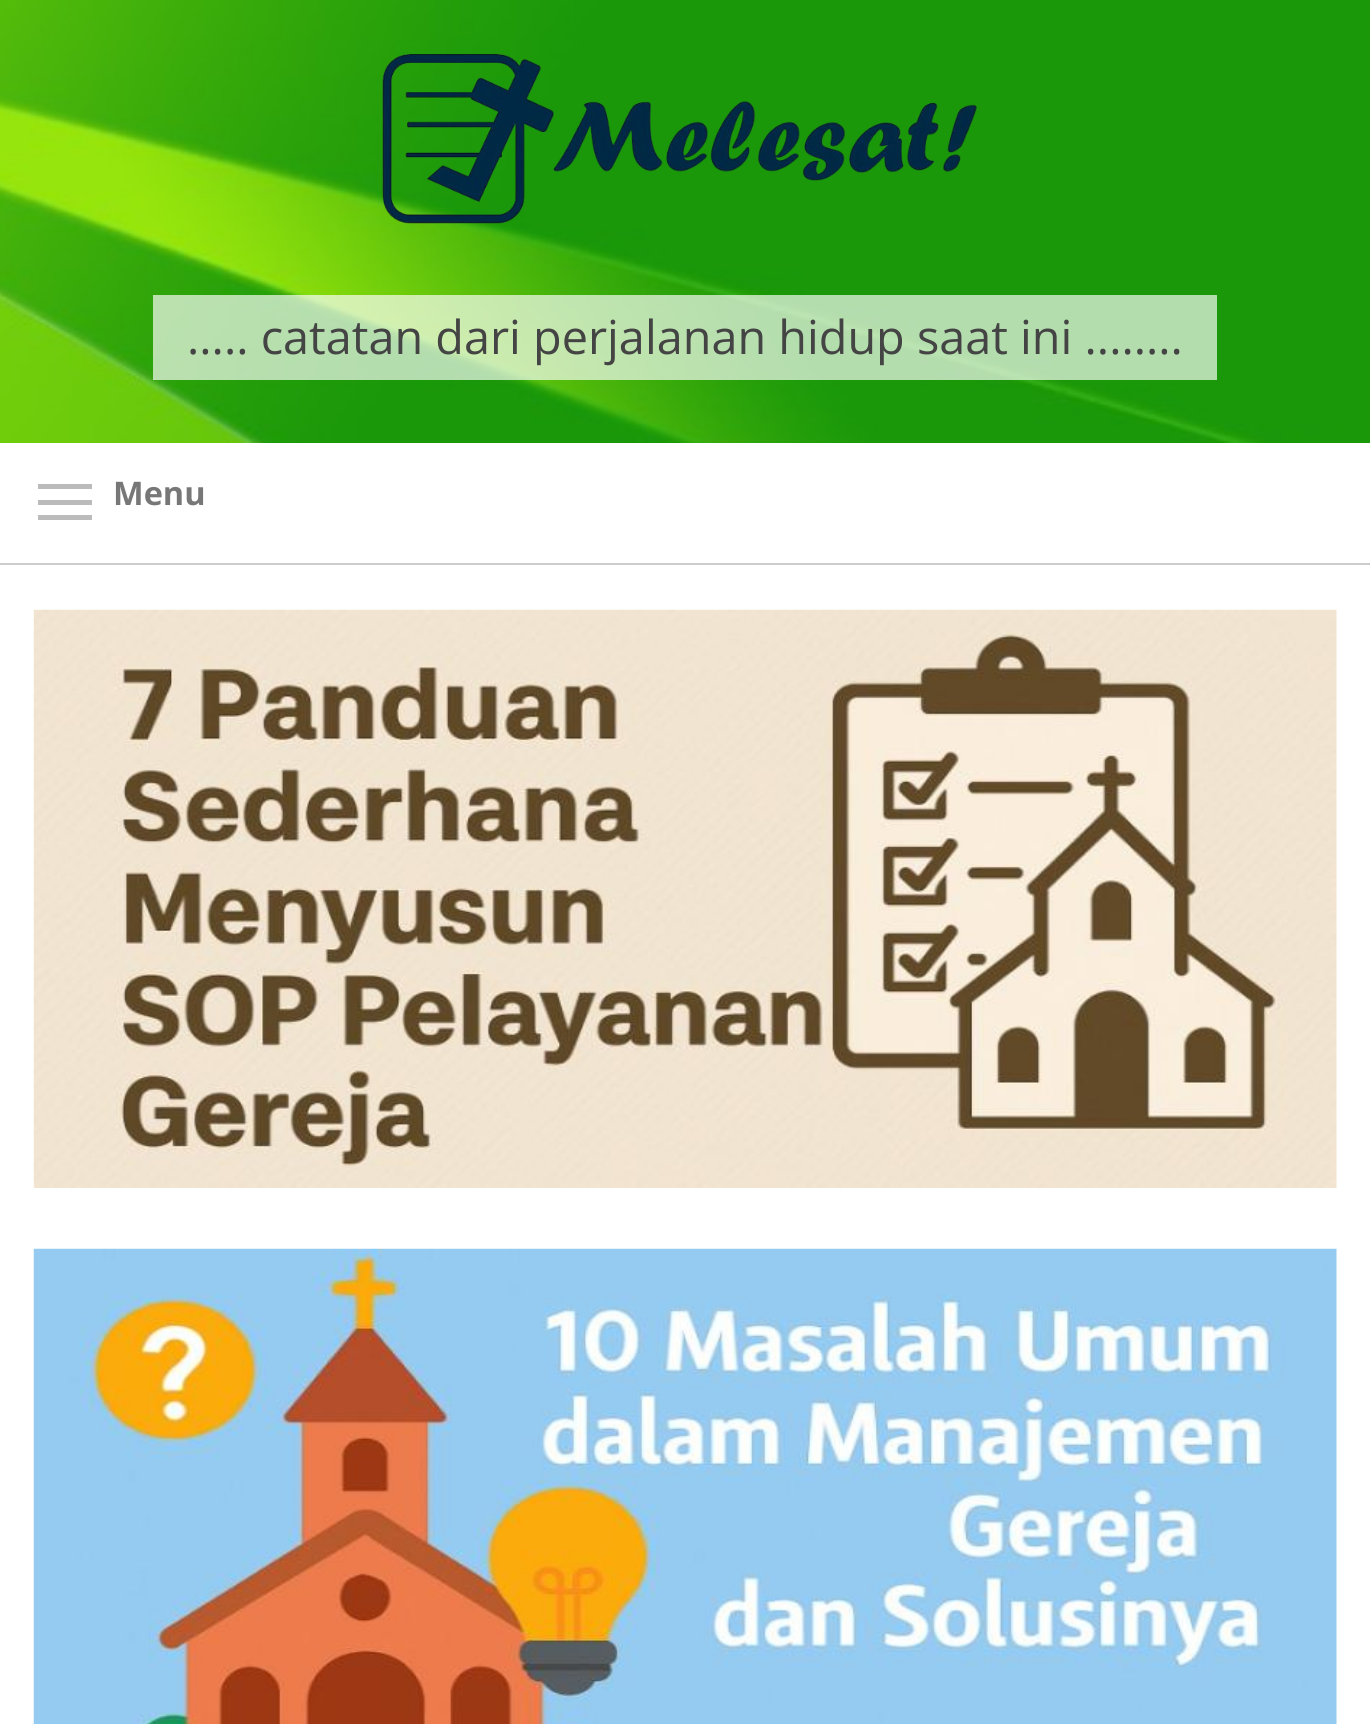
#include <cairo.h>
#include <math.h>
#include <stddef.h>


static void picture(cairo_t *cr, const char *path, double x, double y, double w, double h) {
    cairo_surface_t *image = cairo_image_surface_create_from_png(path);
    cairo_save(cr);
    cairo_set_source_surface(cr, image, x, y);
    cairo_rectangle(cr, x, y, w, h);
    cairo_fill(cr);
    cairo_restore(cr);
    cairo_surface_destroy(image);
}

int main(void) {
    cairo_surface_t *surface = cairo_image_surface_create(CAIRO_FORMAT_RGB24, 1370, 1724);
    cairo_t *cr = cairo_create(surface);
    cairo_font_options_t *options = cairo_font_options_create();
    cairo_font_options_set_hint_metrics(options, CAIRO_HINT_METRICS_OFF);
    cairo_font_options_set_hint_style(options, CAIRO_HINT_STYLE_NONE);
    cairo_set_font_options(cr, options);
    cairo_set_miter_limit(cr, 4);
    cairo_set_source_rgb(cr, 1, 1, 1);
    cairo_paint(cr);
    picture(cr, "img1.png", 0, 0, 1370, 443);
    picture(cr, "img2.png", 382, 54, 595, 170);
    cairo_set_source_rgba(cr, 1, 1, 1, 0.67);
    cairo_rectangle(cr, 153, 295, 1064, 85);
    cairo_fill(cr);
    cairo_select_font_face(cr, "Open Sans", CAIRO_FONT_SLANT_NORMAL, CAIRO_FONT_WEIGHT_NORMAL);
    cairo_set_font_size(cr, 46.8);
    cairo_set_source_rgb(cr, 0.267, 0.267, 0.267);
    cairo_move_to(cr, 187, 354);
    cairo_show_text(cr, "..... catatan dari perjalanan hidup saat ini ........");
    cairo_set_source_rgb(cr, 0.8, 0.8, 0.8);
    cairo_rectangle(cr, 0, 563, 1370, 2);
    cairo_fill(cr);
    cairo_set_source_rgb(cr, 0.733, 0.733, 0.733);
    cairo_rectangle(cr, 38, 500, 54, 5);
    cairo_fill(cr);
    cairo_rectangle(cr, 38, 484, 54, 5);
    cairo_fill(cr);
    cairo_rectangle(cr, 38, 515, 54, 5);
    cairo_fill(cr);
    cairo_select_font_face(cr, "Open Sans", CAIRO_FONT_SLANT_NORMAL, CAIRO_FONT_WEIGHT_BOLD);
    cairo_set_font_size(cr, 32.5);
    cairo_set_source_rgb(cr, 0.467, 0.467, 0.467);
    cairo_move_to(cr, 113, 505);
    cairo_show_text(cr, "Menu");
    picture(cr, "img3.png", 33, 609, 1304, 579);
    picture(cr, "img4.png", 33, 1248, 1304, 476);
    cairo_surface_write_to_png(surface, "page.png");
    cairo_font_options_destroy(options);
    cairo_destroy(cr);
    cairo_surface_destroy(surface);
    return 0;
}
